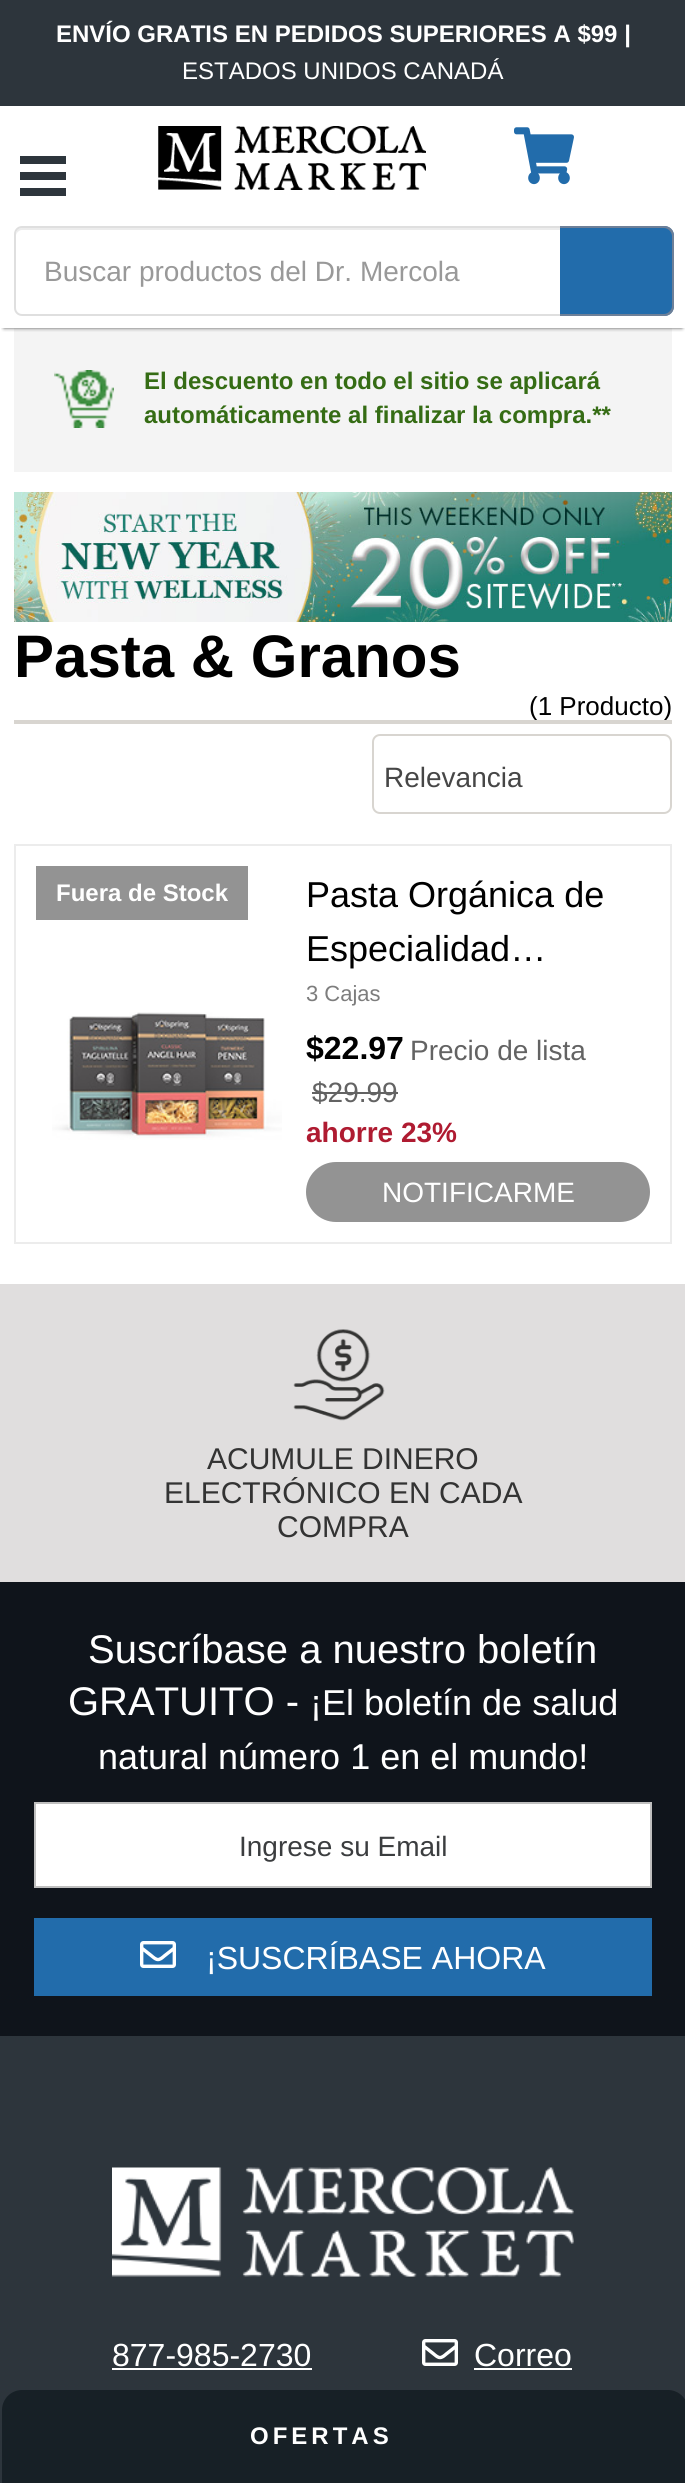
#include <cairo.h>
#include <math.h>
#include <stddef.h>


static void spaced_text(cairo_t *cr, double x, double y, const char *s, double letter, double word) {
    cairo_move_to(cr, x, y);
    while (*s) {
        char ch[5] = {0};
        int n = 0;
        do ch[n++] = *s++; while ((*s & 0xC0) == 0x80);
        cairo_show_text(cr, ch);
        cairo_rel_move_to(cr, letter + word * (*ch == ' '), 0);
    }
}

static void round_rect(cairo_t *cr, double x, double y, double w, double h, double r) {
    cairo_new_sub_path(cr);
    cairo_arc(cr, x + w - r, y + h - r, r, 0, M_PI / 2);
    cairo_arc(cr, x + r, y + h - r, r, M_PI / 2, M_PI);
    cairo_arc(cr, x + r, y + r, r, M_PI, 1.5 * M_PI);
    cairo_arc(cr, x + w - r, y + r, r, 1.5 * M_PI, 2 * M_PI);
    cairo_close_path(cr);
}

static void shadow(cairo_t *cr, double x, double y, double w, double h, double r, double blur, double alpha) {
    cairo_push_group_with_content(cr, CAIRO_CONTENT_ALPHA);
    cairo_set_operator(cr, CAIRO_OPERATOR_SOURCE);
    for (int i = 15; i >= -15 && fmin(w, h) + blur * i / 3 > 0; i -= 2) {
        double e = blur * i / 6;
        cairo_set_source_rgba(cr, 0, 0, 0, alpha * erfc((i - 1) / 8.5) / 2);
        round_rect(cr, x - e, y - e, w + 2 * e, h + 2 * e, fmax(0, fmin(r + e + blur * .6, fmin(w, h) / 2 + e)));
        cairo_fill(cr);
    }
    cairo_pattern_t *soft = cairo_pop_group(cr);
    cairo_mask(cr, soft);
    cairo_pattern_destroy(soft);
}

static void picture(cairo_t *cr, const char *path, double x, double y, double w, double h) {
    cairo_surface_t *image = cairo_image_surface_create_from_png(path);
    cairo_save(cr);
    cairo_set_source_surface(cr, image, x, y);
    cairo_rectangle(cr, x, y, w, h);
    cairo_fill(cr);
    cairo_restore(cr);
    cairo_surface_destroy(image);
}

int main(void) {
    cairo_surface_t *surface = cairo_image_surface_create(CAIRO_FORMAT_RGB24, 685, 2483);
    cairo_t *cr = cairo_create(surface);
    cairo_font_options_t *options = cairo_font_options_create();
    cairo_font_options_set_hint_metrics(options, CAIRO_HINT_METRICS_OFF);
    cairo_font_options_set_hint_style(options, CAIRO_HINT_STYLE_NONE);
    cairo_set_font_options(cr, options);
    cairo_set_miter_limit(cr, 4);
    cairo_set_source_rgb(cr, 1, 1, 1);
    cairo_paint(cr);
    cairo_set_source_rgb(cr, 0.957, 0.957, 0.957);
    cairo_rectangle(cr, 14, 328, 658, 144);
    cairo_fill(cr);
    cairo_save(cr);
    cairo_rectangle(cr, 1, 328, 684, 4);
    cairo_clip(cr);
    cairo_set_source_rgb(cr, 0.333, 0.333, 0.333);
    shadow(cr, 4, 8, 678, 320, 0, 2, 1);
    cairo_restore(cr);
    cairo_set_source_rgb(cr, 0.176, 0.208, 0.235);
    cairo_rectangle(cr, 0, 0, 685, 106);
    cairo_fill(cr);
    cairo_select_font_face(cr, "Liberation Sans", CAIRO_FONT_SLANT_NORMAL, CAIRO_FONT_WEIGHT_BOLD);
    cairo_set_font_size(cr, 24);
    cairo_set_source_rgb(cr, 1, 1, 1);
    cairo_move_to(cr, 56, 42);
    cairo_show_text(cr, "ENVÍO GRATIS EN PEDIDOS SUPERIORES A $99 |");
    cairo_select_font_face(cr, "Liberation Sans", CAIRO_FONT_SLANT_NORMAL, CAIRO_FONT_WEIGHT_NORMAL);
    cairo_move_to(cr, 182, 79);
    cairo_show_text(cr, "ESTADOS UNIDOS CANADÁ");
    picture(cr, "img1.png", 20, 156, 46, 40);
    picture(cr, "img2.png", 158, 126, 268, 64);
    picture(cr, "img3.png", 514, 127, 60, 58);
    cairo_set_source_rgb(cr, 0.925, 0.925, 0.925);
    cairo_new_path(cr);
    cairo_move_to(cr, 22, 230);
    cairo_line_to(cr, 664, 230);
    cairo_curve_to(cr, 667, 230, 670, 233, 670, 236);
    cairo_curve_to(cr, 670, 232, 669, 228, 664, 228);
    cairo_line_to(cr, 22, 228);
    cairo_curve_to(cr, 17, 228, 16, 232, 16, 236);
    cairo_curve_to(cr, 16, 233, 19, 230, 22, 230);
    cairo_close_path(cr);
    cairo_fill(cr);
    round_rect(cr, 15, 227, 656, 88, 7);
    cairo_set_source_rgb(cr, 0.875, 0.875, 0.875);
    cairo_stroke(cr);
    cairo_set_font_size(cr, 28);
    cairo_set_source_rgb(cr, 0.6, 0.6, 0.6);
    cairo_move_to(cr, 44, 281);
    cairo_show_text(cr, "Buscar productos del Dr. Mercola");
    cairo_set_source_rgb(cr, 0.133, 0.424, 0.671);
    cairo_new_path(cr);
    cairo_move_to(cr, 560, 226);
    cairo_line_to(cr, 664, 226);
    cairo_curve_to(cr, 669.5, 226, 674, 230.5, 674, 236);
    cairo_line_to(cr, 674, 306);
    cairo_curve_to(cr, 674, 311.5, 669.5, 316, 664, 316);
    cairo_line_to(cr, 560, 316);
    cairo_close_path(cr);
    cairo_fill(cr);
    cairo_set_source_rgb(cr, 0.431, 0.502, 0.596);
    cairo_set_fill_rule(cr, CAIRO_FILL_RULE_EVEN_ODD);
    cairo_new_path(cr);
    cairo_move_to(cr, 560, 226);
    cairo_line_to(cr, 664, 226);
    cairo_curve_to(cr, 670, 226, 674, 230, 674, 236);
    cairo_line_to(cr, 674, 306);
    cairo_curve_to(cr, 674, 312, 670, 316, 664, 316);
    cairo_line_to(cr, 560, 316);
    cairo_close_path(cr);
    cairo_move_to(cr, 560, 228);
    cairo_line_to(cr, 664, 228);
    cairo_curve_to(cr, 668, 228, 672, 232, 672, 236);
    cairo_line_to(cr, 672, 306);
    cairo_curve_to(cr, 672, 310, 668, 314, 664, 314);
    cairo_line_to(cr, 560, 314);
    cairo_close_path(cr);
    cairo_fill(cr);
    picture(cr, "img4.png", 54, 370, 60, 58);
    cairo_select_font_face(cr, "Liberation Sans", CAIRO_FONT_SLANT_NORMAL, CAIRO_FONT_WEIGHT_BOLD);
    cairo_set_font_size(cr, 24);
    cairo_set_source_rgb(cr, 0.208, 0.424, 0.082);
    cairo_move_to(cr, 144, 389);
    cairo_show_text(cr, "El descuento en todo el sitio se aplicará");
    cairo_move_to(cr, 144, 423);
    cairo_show_text(cr, "automáticamente al finalizar la compra.**");
    picture(cr, "img5.png", 14, 492, 658, 130);
    cairo_set_font_size(cr, 60);
    cairo_set_source_rgb(cr, 0, 0, 0);
    cairo_move_to(cr, 14, 677);
    cairo_show_text(cr, "Pasta & Granos");
    cairo_select_font_face(cr, "Liberation Sans", CAIRO_FONT_SLANT_NORMAL, CAIRO_FONT_WEIGHT_NORMAL);
    cairo_set_font_size(cr, 26);
    cairo_move_to(cr, 529, 715);
    cairo_show_text(cr, "(1 Producto)");
    cairo_set_source_rgb(cr, 0.847, 0.835, 0.816);
    cairo_rectangle(cr, 14, 720, 658, 4);
    cairo_fill(cr);
    round_rect(cr, 373, 735, 298, 78, 7);
    cairo_stroke(cr);
    cairo_set_font_size(cr, 28);
    cairo_set_source_rgb(cr, 0.275, 0.275, 0.275);
    cairo_move_to(cr, 384, 787);
    cairo_show_text(cr, "Relevancia");
    cairo_set_source_rgb(cr, 0.922, 0.922, 0.922);
    cairo_rectangle(cr, 14, 844, 2, 400);
    cairo_fill(cr);
    cairo_rectangle(cr, 16, 844, 656, 2);
    cairo_fill(cr);
    cairo_rectangle(cr, 670, 844, 2, 400);
    cairo_fill(cr);
    cairo_rectangle(cr, 16, 1242, 656, 2);
    cairo_fill(cr);
    cairo_set_source_rgb(cr, 0.576, 0.576, 0.576);
    cairo_rectangle(cr, 36, 866, 212, 54);
    cairo_fill(cr);
    cairo_select_font_face(cr, "Liberation Sans", CAIRO_FONT_SLANT_NORMAL, CAIRO_FONT_WEIGHT_BOLD);
    cairo_set_font_size(cr, 24);
    cairo_set_source_rgb(cr, 1, 1, 1);
    cairo_move_to(cr, 56, 901);
    cairo_show_text(cr, "Fuera de Stock");
    cairo_select_font_face(cr, "Liberation Sans", CAIRO_FONT_SLANT_NORMAL, CAIRO_FONT_WEIGHT_NORMAL);
    cairo_set_font_size(cr, 36);
    cairo_set_source_rgb(cr, 0, 0, 0);
    cairo_move_to(cr, 306, 907);
    cairo_show_text(cr, "Pasta Orgánica de");
    cairo_move_to(cr, 306, 961);
    cairo_show_text(cr, "Especialidad…");
    cairo_set_font_size(cr, 22);
    cairo_set_source_rgb(cr, 0.49, 0.49, 0.49);
    cairo_move_to(cr, 306, 1001);
    cairo_show_text(cr, "3 Cajas");
    cairo_select_font_face(cr, "Liberation Sans", CAIRO_FONT_SLANT_NORMAL, CAIRO_FONT_WEIGHT_BOLD);
    cairo_set_font_size(cr, 32);
    cairo_set_source_rgb(cr, 0, 0, 0);
    cairo_move_to(cr, 306, 1059);
    cairo_show_text(cr, "$22.97");
    cairo_select_font_face(cr, "Liberation Sans", CAIRO_FONT_SLANT_NORMAL, CAIRO_FONT_WEIGHT_NORMAL);
    cairo_set_font_size(cr, 28);
    cairo_set_source_rgb(cr, 0.388, 0.388, 0.388);
    cairo_move_to(cr, 410, 1060);
    cairo_show_text(cr, "Precio de lista");
    cairo_move_to(cr, 312, 1102);
    cairo_show_text(cr, "$29.99");
    cairo_rectangle(cr, 312, 1092, 86, 2);
    cairo_fill(cr);
    cairo_select_font_face(cr, "Liberation Sans", CAIRO_FONT_SLANT_NORMAL, CAIRO_FONT_WEIGHT_BOLD);
    cairo_set_source_rgb(cr, 0.686, 0.106, 0.192);
    cairo_move_to(cr, 306, 1142);
    cairo_show_text(cr, "ahorre 23%");
    cairo_set_source_rgb(cr, 0.576, 0.576, 0.576);
    round_rect(cr, 306, 1162, 344, 60, 30);
    cairo_fill(cr);
    cairo_select_font_face(cr, "Liberation Sans", CAIRO_FONT_SLANT_NORMAL, CAIRO_FONT_WEIGHT_NORMAL);
    cairo_set_source_rgb(cr, 1, 1, 1);
    cairo_move_to(cr, 382, 1202);
    cairo_show_text(cr, "NOTIFICARME");
    picture(cr, "img6.png", 52, 1012, 230, 128);
    cairo_set_source_rgb(cr, 0.878, 0.871, 0.871);
    cairo_rectangle(cr, 0, 1284, 685, 298);
    cairo_fill(cr);
    picture(cr, "img7.png", 293, 1329, 92, 92);
    cairo_set_font_size(cr, 30);
    cairo_set_source_rgb(cr, 0.2, 0.2, 0.2);
    cairo_move_to(cr, 207, 1469);
    cairo_show_text(cr, "ACUMULE DINERO");
    cairo_move_to(cr, 164, 1503);
    cairo_show_text(cr, "ELECTRÓNICO EN CADA");
    cairo_move_to(cr, 277, 1537);
    cairo_show_text(cr, "COMPRA");
    cairo_set_source_rgb(cr, 0.059, 0.082, 0.106);
    cairo_rectangle(cr, 0, 1582, 685, 454);
    cairo_fill(cr);
    cairo_set_font_size(cr, 40);
    cairo_set_source_rgb(cr, 1, 1, 1);
    cairo_move_to(cr, 88, 1663);
    cairo_show_text(cr, "Suscríbase a nuestro boletín");
    cairo_move_to(cr, 68, 1715);
    cairo_show_text(cr, "GRATUITO -");
    cairo_set_font_size(cr, 36);
    cairo_move_to(cr, 310, 1715);
    cairo_show_text(cr, "¡El boletín de salud");
    cairo_move_to(cr, 98, 1769);
    cairo_show_text(cr, "natural número 1 en el mundo!");
    cairo_rectangle(cr, 35, 1803, 616, 84);
    cairo_fill_preserve(cr);
    cairo_set_source_rgb(cr, 0.749, 0.749, 0.749);
    cairo_stroke(cr);
    cairo_set_font_size(cr, 28);
    cairo_set_source_rgb(cr, 0.231, 0.239, 0.247);
    cairo_move_to(cr, 239, 1856);
    cairo_show_text(cr, "Ingrese su Email");
    cairo_set_source_rgb(cr, 0.133, 0.424, 0.671);
    cairo_rectangle(cr, 34, 1918, 618, 78);
    cairo_fill(cr);
    picture(cr, "img8.png", 140, 1941, 36, 27);
    cairo_set_font_size(cr, 32);
    cairo_set_source_rgb(cr, 1, 1, 1);
    cairo_move_to(cr, 206, 1969);
    cairo_show_text(cr, "¡SUSCRÍBASE AHORA");
    cairo_set_source_rgb(cr, 0.176, 0.208, 0.235);
    cairo_rectangle(cr, 0, 2036, 685, 447);
    cairo_fill(cr);
    picture(cr, "img9.png", 112, 2167, 462, 110);
    cairo_set_source_rgb(cr, 1, 1, 1);
    cairo_move_to(cr, 112, 2366);
    cairo_show_text(cr, "877-985-2730");
    cairo_rectangle(cr, 112, 2368, 200, 2);
    cairo_fill(cr);
    picture(cr, "img10.png", 422, 2339, 36, 27);
    cairo_move_to(cr, 474, 2366);
    cairo_show_text(cr, "Correo");
    cairo_rectangle(cr, 474, 2368, 98, 2);
    cairo_fill(cr);
    cairo_set_source_rgb(cr, 0.09, 0.125, 0.149);
    cairo_new_path(cr);
    cairo_move_to(cr, 22, 2390);
    cairo_line_to(cr, 668, 2390);
    cairo_curve_to(cr, 679, 2390, 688, 2399, 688, 2410);
    cairo_line_to(cr, 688, 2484);
    cairo_line_to(cr, 2, 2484);
    cairo_line_to(cr, 2, 2410);
    cairo_curve_to(cr, 2, 2399, 11, 2390, 22, 2390);
    cairo_close_path(cr);
    cairo_fill(cr);
    cairo_select_font_face(cr, "Liberation Sans", CAIRO_FONT_SLANT_NORMAL, CAIRO_FONT_WEIGHT_BOLD);
    cairo_set_font_size(cr, 24);
    cairo_set_source_rgb(cr, 1, 1, 1);
    spaced_text(cr, 250, 2444, "OFERTAS", 4, 0);
    cairo_surface_write_to_png(surface, "page.png");
    cairo_font_options_destroy(options);
    cairo_destroy(cr);
    cairo_surface_destroy(surface);
    return 0;
}
